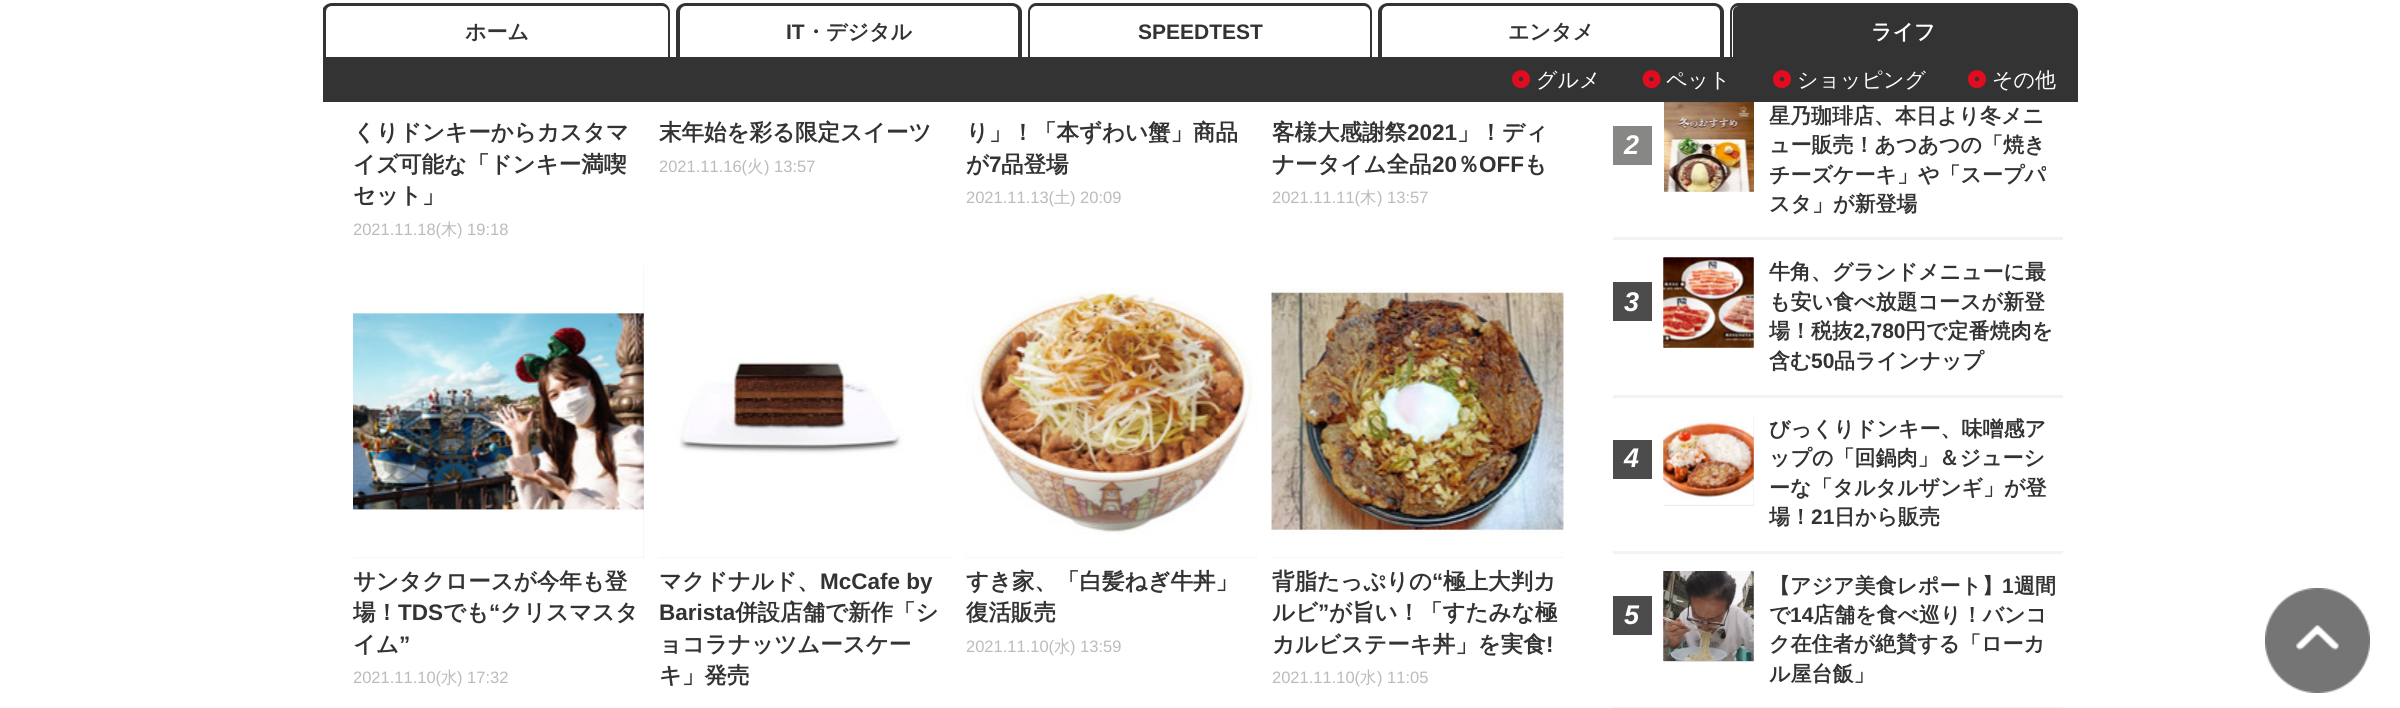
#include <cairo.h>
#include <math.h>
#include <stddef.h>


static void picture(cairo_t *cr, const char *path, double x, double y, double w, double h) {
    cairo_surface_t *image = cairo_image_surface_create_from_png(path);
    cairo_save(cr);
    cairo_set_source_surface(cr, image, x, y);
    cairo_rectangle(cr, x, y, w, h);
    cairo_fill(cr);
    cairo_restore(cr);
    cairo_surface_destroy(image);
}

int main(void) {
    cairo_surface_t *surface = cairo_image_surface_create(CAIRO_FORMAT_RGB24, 2400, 708);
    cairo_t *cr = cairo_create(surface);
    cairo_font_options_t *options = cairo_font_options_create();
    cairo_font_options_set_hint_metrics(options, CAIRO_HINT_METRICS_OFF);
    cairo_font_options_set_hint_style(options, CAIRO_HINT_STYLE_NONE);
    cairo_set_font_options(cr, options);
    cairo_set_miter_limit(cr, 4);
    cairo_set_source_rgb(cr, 1, 1, 1);
    cairo_paint(cr);
    cairo_set_source_rgb(cr, 0.2, 0.2, 0.2);
    cairo_rectangle(cr, 323, 57, 1755, 45);
    cairo_fill(cr);
    cairo_set_fill_rule(cr, CAIRO_FILL_RULE_EVEN_ODD);
    cairo_new_path(cr);
    cairo_move_to(cr, 686, 3);
    cairo_line_to(cr, 1012, 3);
    cairo_curve_to(cr, 1017, 3, 1022, 7, 1022, 12);
    cairo_line_to(cr, 1022, 57);
    cairo_line_to(cr, 676, 57);
    cairo_line_to(cr, 676, 12);
    cairo_curve_to(cr, 676, 7, 681, 3, 686, 3);
    cairo_close_path(cr);
    cairo_move_to(cr, 686, 6);
    cairo_line_to(cr, 1012, 6);
    cairo_curve_to(cr, 1016, 6, 1018, 9, 1018, 12);
    cairo_line_to(cr, 1018, 57);
    cairo_line_to(cr, 680, 57);
    cairo_line_to(cr, 680, 12);
    cairo_curve_to(cr, 680, 9, 682, 6, 686, 6);
    cairo_close_path(cr);
    cairo_fill(cr);
    cairo_select_font_face(cr, "Liberation Sans", CAIRO_FONT_SLANT_NORMAL, CAIRO_FONT_WEIGHT_BOLD);
    cairo_set_font_size(cr, 21);
    cairo_move_to(cr, 786, 39);
    cairo_show_text(cr, "IT");
    cairo_select_font_face(cr, "WenQuanYi Zen Hei", CAIRO_FONT_SLANT_NORMAL, CAIRO_FONT_WEIGHT_BOLD);
    cairo_move_to(cr, 805, 39);
    cairo_show_text(cr, "・デジタル");
    cairo_new_path(cr);
    cairo_move_to(cr, 1388, 3);
    cairo_line_to(cr, 1714, 3);
    cairo_curve_to(cr, 1719, 3, 1724, 7, 1724, 12);
    cairo_line_to(cr, 1724, 57);
    cairo_line_to(cr, 1378, 57);
    cairo_line_to(cr, 1378, 12);
    cairo_curve_to(cr, 1378, 7, 1383, 3, 1388, 3);
    cairo_close_path(cr);
    cairo_move_to(cr, 1388, 6);
    cairo_line_to(cr, 1714, 6);
    cairo_curve_to(cr, 1718, 6, 1720, 9, 1720, 12);
    cairo_line_to(cr, 1720, 57);
    cairo_line_to(cr, 1382, 57);
    cairo_line_to(cr, 1382, 12);
    cairo_curve_to(cr, 1382, 9, 1384, 6, 1388, 6);
    cairo_close_path(cr);
    cairo_fill(cr);
    cairo_move_to(cr, 1508, 39);
    cairo_show_text(cr, "エンタメ");
    cairo_save(cr);
    cairo_set_fill_rule(cr, CAIRO_FILL_RULE_WINDING);
    cairo_rectangle(cr, 323, 0, 1755, 101);
    cairo_clip(cr);
    cairo_set_fill_rule(cr, CAIRO_FILL_RULE_EVEN_ODD);
    cairo_new_path(cr);
    cairo_move_to(cr, 332, 3);
    cairo_line_to(cr, 662, 3);
    cairo_curve_to(cr, 666, 3, 670, 7, 670, 12);
    cairo_line_to(cr, 670, 57);
    cairo_line_to(cr, 322, 57);
    cairo_line_to(cr, 322, 12);
    cairo_curve_to(cr, 322, 7, 327, 3, 332, 3);
    cairo_close_path(cr);
    cairo_move_to(cr, 332, 6);
    cairo_line_to(cr, 662, 6);
    cairo_curve_to(cr, 665, 6, 668, 9, 668, 12);
    cairo_line_to(cr, 668, 57);
    cairo_line_to(cr, 326, 57);
    cairo_line_to(cr, 326, 12);
    cairo_curve_to(cr, 326, 9, 328, 6, 332, 6);
    cairo_close_path(cr);
    cairo_fill(cr);
    cairo_restore(cr);
    cairo_move_to(cr, 465, 39);
    cairo_show_text(cr, "ホーム");
    cairo_new_path(cr);
    cairo_move_to(cr, 1036, 3);
    cairo_line_to(cr, 1364, 3);
    cairo_curve_to(cr, 1368, 3, 1372, 7, 1372, 12);
    cairo_line_to(cr, 1372, 57);
    cairo_line_to(cr, 1028, 57);
    cairo_line_to(cr, 1028, 12);
    cairo_curve_to(cr, 1028, 7, 1032, 3, 1036, 3);
    cairo_close_path(cr);
    cairo_move_to(cr, 1036, 6);
    cairo_line_to(cr, 1364, 6);
    cairo_curve_to(cr, 1367, 6, 1370, 9, 1370, 12);
    cairo_line_to(cr, 1370, 57);
    cairo_line_to(cr, 1030, 57);
    cairo_line_to(cr, 1030, 12);
    cairo_curve_to(cr, 1030, 9, 1033, 6, 1036, 6);
    cairo_close_path(cr);
    cairo_fill(cr);
    cairo_select_font_face(cr, "Liberation Sans", CAIRO_FONT_SLANT_NORMAL, CAIRO_FONT_WEIGHT_BOLD);
    cairo_move_to(cr, 1138, 39);
    cairo_show_text(cr, "SPEEDTEST");
    cairo_new_path(cr);
    cairo_move_to(cr, 1739, 6);
    cairo_line_to(cr, 2069, 6);
    cairo_curve_to(cr, 2072.5, 6, 2075, 8.5, 2075, 12);
    cairo_line_to(cr, 2075, 57);
    cairo_line_to(cr, 1733, 57);
    cairo_line_to(cr, 1733, 12);
    cairo_curve_to(cr, 1733, 8.5, 1735.5, 6, 1739, 6);
    cairo_close_path(cr);
    cairo_fill(cr);
    cairo_new_path(cr);
    cairo_move_to(cr, 1738, 3);
    cairo_line_to(cr, 2068, 3);
    cairo_curve_to(cr, 2073, 3, 2078, 7, 2078, 12);
    cairo_line_to(cr, 2078, 57);
    cairo_line_to(cr, 1730, 57);
    cairo_line_to(cr, 1730, 12);
    cairo_curve_to(cr, 1730, 7, 1734, 3, 1738, 3);
    cairo_close_path(cr);
    cairo_move_to(cr, 1738, 6);
    cairo_line_to(cr, 2068, 6);
    cairo_curve_to(cr, 2072, 6, 2074, 9, 2074, 12);
    cairo_line_to(cr, 2074, 57);
    cairo_line_to(cr, 1732, 57);
    cairo_line_to(cr, 1732, 12);
    cairo_curve_to(cr, 1732, 9, 1735, 6, 1738, 6);
    cairo_close_path(cr);
    cairo_fill(cr);
    cairo_select_font_face(cr, "WenQuanYi Zen Hei", CAIRO_FONT_SLANT_NORMAL, CAIRO_FONT_WEIGHT_BOLD);
    cairo_set_source_rgb(cr, 1, 1, 1);
    cairo_move_to(cr, 1871, 39);
    cairo_show_text(cr, "ライフ");
    picture(cr, "img1.png", 1512, 70, 18, 19);
    cairo_select_font_face(cr, "WenQuanYi Zen Hei Medium", CAIRO_FONT_SLANT_NORMAL, CAIRO_FONT_WEIGHT_NORMAL);
    cairo_move_to(cr, 1536, 87);
    cairo_show_text(cr, "グルメ");
    picture(cr, "img2.png", 1642, 70, 19, 19);
    cairo_move_to(cr, 1666, 87);
    cairo_show_text(cr, "ペット");
    picture(cr, "img1.png", 1773, 70, 18, 19);
    cairo_move_to(cr, 1797, 87);
    cairo_show_text(cr, "ショッピング");
    picture(cr, "img1.png", 1968, 70, 18, 19);
    cairo_move_to(cr, 1992, 87);
    cairo_show_text(cr, "その他");
    cairo_select_font_face(cr, "WenQuanYi Zen Hei", CAIRO_FONT_SLANT_NORMAL, CAIRO_FONT_WEIGHT_BOLD);
    cairo_set_font_size(cr, 22.5);
    cairo_set_source_rgb(cr, 0.2, 0.2, 0.2);
    cairo_move_to(cr, 353, 140);
    cairo_show_text(cr, "くりドンキーからカスタマ");
    cairo_move_to(cr, 353, 172);
    cairo_show_text(cr, "イズ可能な「ドンキー満喫");
    cairo_move_to(cr, 353, 203);
    cairo_show_text(cr, "セット」");
    cairo_select_font_face(cr, "Liberation Sans", CAIRO_FONT_SLANT_NORMAL, CAIRO_FONT_WEIGHT_NORMAL);
    cairo_set_font_size(cr, 16.5);
    cairo_set_source_rgb(cr, 0.733, 0.733, 0.733);
    cairo_move_to(cr, 353, 235);
    cairo_show_text(cr, "2021.11.18(");
    cairo_select_font_face(cr, "WenQuanYi Zen Hei Medium", CAIRO_FONT_SLANT_NORMAL, CAIRO_FONT_WEIGHT_NORMAL);
    cairo_move_to(cr, 441, 235);
    cairo_show_text(cr, "木");
    cairo_select_font_face(cr, "Liberation Sans", CAIRO_FONT_SLANT_NORMAL, CAIRO_FONT_WEIGHT_NORMAL);
    cairo_move_to(cr, 457, 235);
    cairo_show_text(cr, ") 19:18");
    cairo_select_font_face(cr, "WenQuanYi Zen Hei", CAIRO_FONT_SLANT_NORMAL, CAIRO_FONT_WEIGHT_BOLD);
    cairo_set_font_size(cr, 22.5);
    cairo_set_source_rgb(cr, 0.2, 0.2, 0.2);
    cairo_move_to(cr, 659, 140);
    cairo_show_text(cr, "末年始を彩る限定スイーツ");
    cairo_select_font_face(cr, "Liberation Sans", CAIRO_FONT_SLANT_NORMAL, CAIRO_FONT_WEIGHT_NORMAL);
    cairo_set_font_size(cr, 16.5);
    cairo_set_source_rgb(cr, 0.733, 0.733, 0.733);
    cairo_move_to(cr, 659, 172);
    cairo_show_text(cr, "2021.11.16(");
    cairo_select_font_face(cr, "WenQuanYi Zen Hei Medium", CAIRO_FONT_SLANT_NORMAL, CAIRO_FONT_WEIGHT_NORMAL);
    cairo_move_to(cr, 747, 172);
    cairo_show_text(cr, "火");
    cairo_select_font_face(cr, "Liberation Sans", CAIRO_FONT_SLANT_NORMAL, CAIRO_FONT_WEIGHT_NORMAL);
    cairo_move_to(cr, 764, 172);
    cairo_show_text(cr, ") 13:57");
    cairo_select_font_face(cr, "WenQuanYi Zen Hei", CAIRO_FONT_SLANT_NORMAL, CAIRO_FONT_WEIGHT_BOLD);
    cairo_set_font_size(cr, 22.5);
    cairo_set_source_rgb(cr, 0.2, 0.2, 0.2);
    cairo_move_to(cr, 966, 140);
    cairo_show_text(cr, "り」！「本ずわい蟹」商品");
    cairo_move_to(cr, 966, 172);
    cairo_show_text(cr, "が");
    cairo_select_font_face(cr, "Liberation Sans", CAIRO_FONT_SLANT_NORMAL, CAIRO_FONT_WEIGHT_BOLD);
    cairo_move_to(cr, 989, 172);
    cairo_show_text(cr, "7");
    cairo_select_font_face(cr, "WenQuanYi Zen Hei", CAIRO_FONT_SLANT_NORMAL, CAIRO_FONT_WEIGHT_BOLD);
    cairo_move_to(cr, 1001, 172);
    cairo_show_text(cr, "品登場");
    cairo_select_font_face(cr, "Liberation Sans", CAIRO_FONT_SLANT_NORMAL, CAIRO_FONT_WEIGHT_NORMAL);
    cairo_set_font_size(cr, 16.5);
    cairo_set_source_rgb(cr, 0.733, 0.733, 0.733);
    cairo_move_to(cr, 966, 203);
    cairo_show_text(cr, "2021.11.13(");
    cairo_select_font_face(cr, "WenQuanYi Zen Hei Medium", CAIRO_FONT_SLANT_NORMAL, CAIRO_FONT_WEIGHT_NORMAL);
    cairo_move_to(cr, 1054, 203);
    cairo_show_text(cr, "土");
    cairo_select_font_face(cr, "Liberation Sans", CAIRO_FONT_SLANT_NORMAL, CAIRO_FONT_WEIGHT_NORMAL);
    cairo_move_to(cr, 1070, 203);
    cairo_show_text(cr, ") 20:09");
    cairo_select_font_face(cr, "WenQuanYi Zen Hei", CAIRO_FONT_SLANT_NORMAL, CAIRO_FONT_WEIGHT_BOLD);
    cairo_set_font_size(cr, 22.5);
    cairo_set_source_rgb(cr, 0.2, 0.2, 0.2);
    cairo_move_to(cr, 1272, 140);
    cairo_show_text(cr, "客様大感謝祭");
    cairo_select_font_face(cr, "Liberation Sans", CAIRO_FONT_SLANT_NORMAL, CAIRO_FONT_WEIGHT_BOLD);
    cairo_move_to(cr, 1407, 140);
    cairo_show_text(cr, "2021");
    cairo_select_font_face(cr, "WenQuanYi Zen Hei", CAIRO_FONT_SLANT_NORMAL, CAIRO_FONT_WEIGHT_BOLD);
    cairo_move_to(cr, 1457, 140);
    cairo_show_text(cr, "」！ディ");
    cairo_move_to(cr, 1272, 172);
    cairo_show_text(cr, "ナータイム全品");
    cairo_select_font_face(cr, "Liberation Sans", CAIRO_FONT_SLANT_NORMAL, CAIRO_FONT_WEIGHT_BOLD);
    cairo_move_to(cr, 1432, 172);
    cairo_show_text(cr, "20");
    cairo_select_font_face(cr, "WenQuanYi Zen Hei", CAIRO_FONT_SLANT_NORMAL, CAIRO_FONT_WEIGHT_BOLD);
    cairo_move_to(cr, 1457, 172);
    cairo_show_text(cr, "％");
    cairo_select_font_face(cr, "Liberation Sans", CAIRO_FONT_SLANT_NORMAL, CAIRO_FONT_WEIGHT_BOLD);
    cairo_move_to(cr, 1479, 172);
    cairo_show_text(cr, "OFF");
    cairo_select_font_face(cr, "WenQuanYi Zen Hei", CAIRO_FONT_SLANT_NORMAL, CAIRO_FONT_WEIGHT_BOLD);
    cairo_move_to(cr, 1524, 172);
    cairo_show_text(cr, "も");
    cairo_select_font_face(cr, "Liberation Sans", CAIRO_FONT_SLANT_NORMAL, CAIRO_FONT_WEIGHT_NORMAL);
    cairo_set_font_size(cr, 16.5);
    cairo_set_source_rgb(cr, 0.733, 0.733, 0.733);
    cairo_move_to(cr, 1272, 203);
    cairo_show_text(cr, "2021.11.11(");
    cairo_select_font_face(cr, "WenQuanYi Zen Hei Medium", CAIRO_FONT_SLANT_NORMAL, CAIRO_FONT_WEIGHT_NORMAL);
    cairo_move_to(cr, 1360, 203);
    cairo_show_text(cr, "木");
    cairo_select_font_face(cr, "Liberation Sans", CAIRO_FONT_SLANT_NORMAL, CAIRO_FONT_WEIGHT_NORMAL);
    cairo_move_to(cr, 1377, 203);
    cairo_show_text(cr, ") 13:57");
    cairo_set_source_rgb(cr, 0.867, 0.871, 0.886);
    cairo_rectangle(cr, 353, 266, 291, 292);
    cairo_fill(cr);
    picture(cr, "img3.png", 353, 266, 291, 292);
    picture(cr, "img4.png", 353, 266, 291, 292);
    cairo_select_font_face(cr, "WenQuanYi Zen Hei", CAIRO_FONT_SLANT_NORMAL, CAIRO_FONT_WEIGHT_BOLD);
    cairo_set_font_size(cr, 22.5);
    cairo_set_source_rgb(cr, 0.2, 0.2, 0.2);
    cairo_move_to(cr, 353, 589);
    cairo_show_text(cr, "サンタクロースが今年も登");
    cairo_move_to(cr, 353, 620);
    cairo_show_text(cr, "場！");
    cairo_select_font_face(cr, "Liberation Sans", CAIRO_FONT_SLANT_NORMAL, CAIRO_FONT_WEIGHT_BOLD);
    cairo_move_to(cr, 398, 620);
    cairo_show_text(cr, "TDS");
    cairo_select_font_face(cr, "WenQuanYi Zen Hei", CAIRO_FONT_SLANT_NORMAL, CAIRO_FONT_WEIGHT_BOLD);
    cairo_move_to(cr, 443, 620);
    cairo_show_text(cr, "でも");
    cairo_select_font_face(cr, "Liberation Sans", CAIRO_FONT_SLANT_NORMAL, CAIRO_FONT_WEIGHT_BOLD);
    cairo_move_to(cr, 489, 620);
    cairo_show_text(cr, "“");
    cairo_select_font_face(cr, "WenQuanYi Zen Hei", CAIRO_FONT_SLANT_NORMAL, CAIRO_FONT_WEIGHT_BOLD);
    cairo_move_to(cr, 500, 620);
    cairo_show_text(cr, "クリスマスタ");
    cairo_move_to(cr, 353, 652);
    cairo_show_text(cr, "イム");
    cairo_select_font_face(cr, "Liberation Sans", CAIRO_FONT_SLANT_NORMAL, CAIRO_FONT_WEIGHT_BOLD);
    cairo_move_to(cr, 399, 652);
    cairo_show_text(cr, "”");
    cairo_select_font_face(cr, "Liberation Sans", CAIRO_FONT_SLANT_NORMAL, CAIRO_FONT_WEIGHT_NORMAL);
    cairo_set_font_size(cr, 16.5);
    cairo_set_source_rgb(cr, 0.733, 0.733, 0.733);
    cairo_move_to(cr, 353, 683);
    cairo_show_text(cr, "2021.11.10(");
    cairo_select_font_face(cr, "WenQuanYi Zen Hei Medium", CAIRO_FONT_SLANT_NORMAL, CAIRO_FONT_WEIGHT_NORMAL);
    cairo_move_to(cr, 441, 683);
    cairo_show_text(cr, "水");
    cairo_select_font_face(cr, "Liberation Sans", CAIRO_FONT_SLANT_NORMAL, CAIRO_FONT_WEIGHT_NORMAL);
    cairo_move_to(cr, 457, 683);
    cairo_show_text(cr, ") 17:32");
    cairo_set_source_rgb(cr, 0.867, 0.871, 0.886);
    cairo_rectangle(cr, 659, 266, 292, 292);
    cairo_fill(cr);
    picture(cr, "img5.png", 659, 266, 292, 292);
    picture(cr, "img6.png", 659, 266, 292, 292);
    cairo_select_font_face(cr, "WenQuanYi Zen Hei", CAIRO_FONT_SLANT_NORMAL, CAIRO_FONT_WEIGHT_BOLD);
    cairo_set_font_size(cr, 22.5);
    cairo_set_source_rgb(cr, 0.2, 0.2, 0.2);
    cairo_move_to(cr, 659, 589);
    cairo_show_text(cr, "マクドナルド、");
    cairo_select_font_face(cr, "Liberation Sans", CAIRO_FONT_SLANT_NORMAL, CAIRO_FONT_WEIGHT_BOLD);
    cairo_move_to(cr, 820, 589);
    cairo_show_text(cr, "McCafe by");
    cairo_move_to(cr, 659, 620);
    cairo_show_text(cr, "Barista");
    cairo_select_font_face(cr, "WenQuanYi Zen Hei", CAIRO_FONT_SLANT_NORMAL, CAIRO_FONT_WEIGHT_BOLD);
    cairo_move_to(cr, 735, 620);
    cairo_show_text(cr, "併設店舗で新作「シ");
    cairo_move_to(cr, 659, 652);
    cairo_show_text(cr, "ョコラナッツムースケー");
    cairo_move_to(cr, 659, 683);
    cairo_show_text(cr, "キ」発売");
    cairo_set_source_rgb(cr, 0.867, 0.871, 0.886);
    cairo_rectangle(cr, 966, 266, 291, 292);
    cairo_fill(cr);
    picture(cr, "img7.png", 966, 266, 291, 292);
    picture(cr, "img8.png", 966, 266, 291, 292);
    cairo_set_source_rgb(cr, 0.2, 0.2, 0.2);
    cairo_move_to(cr, 966, 589);
    cairo_show_text(cr, "すき家、「白髪ねぎ牛丼」");
    cairo_move_to(cr, 966, 620);
    cairo_show_text(cr, "復活販売");
    cairo_select_font_face(cr, "Liberation Sans", CAIRO_FONT_SLANT_NORMAL, CAIRO_FONT_WEIGHT_NORMAL);
    cairo_set_font_size(cr, 16.5);
    cairo_set_source_rgb(cr, 0.733, 0.733, 0.733);
    cairo_move_to(cr, 966, 652);
    cairo_show_text(cr, "2021.11.10(");
    cairo_select_font_face(cr, "WenQuanYi Zen Hei Medium", CAIRO_FONT_SLANT_NORMAL, CAIRO_FONT_WEIGHT_NORMAL);
    cairo_move_to(cr, 1054, 652);
    cairo_show_text(cr, "水");
    cairo_select_font_face(cr, "Liberation Sans", CAIRO_FONT_SLANT_NORMAL, CAIRO_FONT_WEIGHT_NORMAL);
    cairo_move_to(cr, 1070, 652);
    cairo_show_text(cr, ") 13:59");
    cairo_set_source_rgb(cr, 0.867, 0.871, 0.886);
    cairo_rectangle(cr, 1272, 266, 291, 292);
    cairo_fill(cr);
    picture(cr, "img9.png", 1271, 266, 293, 292);
    picture(cr, "img10.png", 1271, 266, 293, 292);
    cairo_select_font_face(cr, "WenQuanYi Zen Hei", CAIRO_FONT_SLANT_NORMAL, CAIRO_FONT_WEIGHT_BOLD);
    cairo_set_font_size(cr, 22.5);
    cairo_set_source_rgb(cr, 0.2, 0.2, 0.2);
    cairo_move_to(cr, 1272, 589);
    cairo_show_text(cr, "背脂たっぷりの");
    cairo_select_font_face(cr, "Liberation Sans", CAIRO_FONT_SLANT_NORMAL, CAIRO_FONT_WEIGHT_BOLD);
    cairo_move_to(cr, 1432, 589);
    cairo_show_text(cr, "“");
    cairo_select_font_face(cr, "WenQuanYi Zen Hei", CAIRO_FONT_SLANT_NORMAL, CAIRO_FONT_WEIGHT_BOLD);
    cairo_move_to(cr, 1443, 589);
    cairo_show_text(cr, "極上大判カ");
    cairo_move_to(cr, 1272, 620);
    cairo_show_text(cr, "ルビ");
    cairo_select_font_face(cr, "Liberation Sans", CAIRO_FONT_SLANT_NORMAL, CAIRO_FONT_WEIGHT_BOLD);
    cairo_move_to(cr, 1318, 620);
    cairo_show_text(cr, "”");
    cairo_select_font_face(cr, "WenQuanYi Zen Hei", CAIRO_FONT_SLANT_NORMAL, CAIRO_FONT_WEIGHT_BOLD);
    cairo_move_to(cr, 1329, 620);
    cairo_show_text(cr, "が旨い！「すたみな極");
    cairo_move_to(cr, 1272, 652);
    cairo_show_text(cr, "カルビステーキ丼」を実食");
    cairo_select_font_face(cr, "Liberation Sans", CAIRO_FONT_SLANT_NORMAL, CAIRO_FONT_WEIGHT_BOLD);
    cairo_move_to(cr, 1546, 652);
    cairo_show_text(cr, "!");
    cairo_select_font_face(cr, "Liberation Sans", CAIRO_FONT_SLANT_NORMAL, CAIRO_FONT_WEIGHT_NORMAL);
    cairo_set_font_size(cr, 16.5);
    cairo_set_source_rgb(cr, 0.733, 0.733, 0.733);
    cairo_move_to(cr, 1272, 683);
    cairo_show_text(cr, "2021.11.10(");
    cairo_select_font_face(cr, "WenQuanYi Zen Hei Medium", CAIRO_FONT_SLANT_NORMAL, CAIRO_FONT_WEIGHT_NORMAL);
    cairo_move_to(cr, 1360, 683);
    cairo_show_text(cr, "水");
    cairo_select_font_face(cr, "Liberation Sans", CAIRO_FONT_SLANT_NORMAL, CAIRO_FONT_WEIGHT_NORMAL);
    cairo_move_to(cr, 1377, 683);
    cairo_show_text(cr, ") 11:05");
    cairo_set_source_rgb(cr, 0.953, 0.953, 0.953);
    cairo_rectangle(cr, 1613, 237, 450, 3);
    cairo_fill(cr);
    cairo_set_source_rgb(cr, 0.529, 0.533, 0.522);
    cairo_rectangle(cr, 1613, 126, 39, 39);
    cairo_fill(cr);
    cairo_select_font_face(cr, "Liberation Sans", CAIRO_FONT_SLANT_ITALIC, CAIRO_FONT_WEIGHT_BOLD);
    cairo_set_font_size(cr, 27);
    cairo_set_source_rgb(cr, 1, 1, 1);
    cairo_move_to(cr, 1624, 154);
    cairo_show_text(cr, "2");
    picture(cr, "img11.png", 1664, 191, 90, 1);
    picture(cr, "img12.png", 1664, 102, 90, 90);
    cairo_select_font_face(cr, "WenQuanYi Zen Hei", CAIRO_FONT_SLANT_NORMAL, CAIRO_FONT_WEIGHT_BOLD);
    cairo_set_font_size(cr, 21);
    cairo_set_source_rgb(cr, 0.2, 0.2, 0.2);
    cairo_move_to(cr, 1769, 123);
    cairo_show_text(cr, "星乃珈琲店、本日より冬メニ");
    cairo_move_to(cr, 1769, 152);
    cairo_show_text(cr, "ュー販売！あつあつの「焼き");
    cairo_move_to(cr, 1769, 182);
    cairo_show_text(cr, "チーズケーキ」や「スープパ");
    cairo_move_to(cr, 1769, 211);
    cairo_show_text(cr, "スタ」が新登場");
    cairo_set_source_rgb(cr, 0.953, 0.953, 0.953);
    cairo_rectangle(cr, 1613, 395, 450, 3);
    cairo_fill(cr);
    cairo_set_source_rgb(cr, 0.298, 0.298, 0.298);
    cairo_rectangle(cr, 1613, 282, 39, 39);
    cairo_fill(cr);
    cairo_select_font_face(cr, "Liberation Sans", CAIRO_FONT_SLANT_ITALIC, CAIRO_FONT_WEIGHT_BOLD);
    cairo_set_font_size(cr, 27);
    cairo_set_source_rgb(cr, 1, 1, 1);
    cairo_move_to(cr, 1624, 311);
    cairo_show_text(cr, "3");
    cairo_set_source_rgb(cr, 0.867, 0.871, 0.886);
    cairo_rectangle(cr, 1664, 258, 90, 90);
    cairo_fill(cr);
    picture(cr, "img13.png", 1663, 257, 91, 91);
    picture(cr, "img14.png", 1663, 257, 91, 91);
    cairo_select_font_face(cr, "WenQuanYi Zen Hei", CAIRO_FONT_SLANT_NORMAL, CAIRO_FONT_WEIGHT_BOLD);
    cairo_set_font_size(cr, 21);
    cairo_set_source_rgb(cr, 0.2, 0.2, 0.2);
    cairo_move_to(cr, 1769, 279);
    cairo_show_text(cr, "牛角、グランドメニューに最");
    cairo_move_to(cr, 1769, 309);
    cairo_show_text(cr, "も安い食べ放題コースが新登");
    cairo_move_to(cr, 1769, 338);
    cairo_show_text(cr, "場！税抜");
    cairo_select_font_face(cr, "Liberation Sans", CAIRO_FONT_SLANT_NORMAL, CAIRO_FONT_WEIGHT_BOLD);
    cairo_move_to(cr, 1853, 338);
    cairo_show_text(cr, "2,780");
    cairo_select_font_face(cr, "WenQuanYi Zen Hei", CAIRO_FONT_SLANT_NORMAL, CAIRO_FONT_WEIGHT_BOLD);
    cairo_move_to(cr, 1905, 338);
    cairo_show_text(cr, "円で定番焼肉を");
    cairo_move_to(cr, 1769, 368);
    cairo_show_text(cr, "含む");
    cairo_select_font_face(cr, "Liberation Sans", CAIRO_FONT_SLANT_NORMAL, CAIRO_FONT_WEIGHT_BOLD);
    cairo_move_to(cr, 1811, 368);
    cairo_show_text(cr, "50");
    cairo_select_font_face(cr, "WenQuanYi Zen Hei", CAIRO_FONT_SLANT_NORMAL, CAIRO_FONT_WEIGHT_BOLD);
    cairo_move_to(cr, 1834, 368);
    cairo_show_text(cr, "品ラインナップ");
    cairo_set_source_rgb(cr, 0.953, 0.953, 0.953);
    cairo_rectangle(cr, 1613, 551, 450, 3);
    cairo_fill(cr);
    cairo_set_source_rgb(cr, 0.298, 0.298, 0.298);
    cairo_rectangle(cr, 1613, 440, 39, 39);
    cairo_fill(cr);
    cairo_select_font_face(cr, "Liberation Sans", CAIRO_FONT_SLANT_ITALIC, CAIRO_FONT_WEIGHT_BOLD);
    cairo_set_font_size(cr, 27);
    cairo_set_source_rgb(cr, 1, 1, 1);
    cairo_move_to(cr, 1624, 467);
    cairo_show_text(cr, "4");
    cairo_set_source_rgb(cr, 0.867, 0.871, 0.886);
    cairo_rectangle(cr, 1664, 416, 90, 90);
    cairo_fill(cr);
    picture(cr, "img15.png", 1663, 416, 91, 90);
    picture(cr, "img16.png", 1663, 416, 91, 90);
    cairo_select_font_face(cr, "WenQuanYi Zen Hei", CAIRO_FONT_SLANT_NORMAL, CAIRO_FONT_WEIGHT_BOLD);
    cairo_set_font_size(cr, 21);
    cairo_set_source_rgb(cr, 0.2, 0.2, 0.2);
    cairo_move_to(cr, 1769, 436);
    cairo_show_text(cr, "びっくりドンキー、味噌感ア");
    cairo_move_to(cr, 1769, 465);
    cairo_show_text(cr, "ップの「回鍋肉」＆ジューシ");
    cairo_move_to(cr, 1769, 495);
    cairo_show_text(cr, "ーな「タルタルザンギ」が登");
    cairo_move_to(cr, 1769, 524);
    cairo_show_text(cr, "場！");
    cairo_select_font_face(cr, "Liberation Sans", CAIRO_FONT_SLANT_NORMAL, CAIRO_FONT_WEIGHT_BOLD);
    cairo_move_to(cr, 1811, 524);
    cairo_show_text(cr, "21");
    cairo_select_font_face(cr, "WenQuanYi Zen Hei", CAIRO_FONT_SLANT_NORMAL, CAIRO_FONT_WEIGHT_BOLD);
    cairo_move_to(cr, 1834, 524);
    cairo_show_text(cr, "日から販売");
    cairo_set_source_rgb(cr, 0.953, 0.953, 0.953);
    cairo_rectangle(cr, 1613, 707, 450, 1);
    cairo_fill(cr);
    cairo_set_source_rgb(cr, 0.298, 0.298, 0.298);
    cairo_rectangle(cr, 1613, 596, 39, 39);
    cairo_fill(cr);
    cairo_select_font_face(cr, "Liberation Sans", CAIRO_FONT_SLANT_ITALIC, CAIRO_FONT_WEIGHT_BOLD);
    cairo_set_font_size(cr, 27);
    cairo_set_source_rgb(cr, 1, 1, 1);
    cairo_move_to(cr, 1624, 624);
    cairo_show_text(cr, "5");
    cairo_set_source_rgb(cr, 0.867, 0.871, 0.886);
    cairo_rectangle(cr, 1664, 572, 90, 90);
    cairo_fill(cr);
    picture(cr, "img17.png", 1663, 571, 91, 90);
    picture(cr, "img18.png", 1663, 571, 91, 90);
    cairo_select_font_face(cr, "WenQuanYi Zen Hei", CAIRO_FONT_SLANT_NORMAL, CAIRO_FONT_WEIGHT_BOLD);
    cairo_set_font_size(cr, 21);
    cairo_set_source_rgb(cr, 0.2, 0.2, 0.2);
    cairo_move_to(cr, 1769, 593);
    cairo_show_text(cr, "【アジア美食レポート】");
    cairo_select_font_face(cr, "Liberation Sans", CAIRO_FONT_SLANT_NORMAL, CAIRO_FONT_WEIGHT_BOLD);
    cairo_move_to(cr, 2002, 593);
    cairo_show_text(cr, "1");
    cairo_select_font_face(cr, "WenQuanYi Zen Hei", CAIRO_FONT_SLANT_NORMAL, CAIRO_FONT_WEIGHT_BOLD);
    cairo_move_to(cr, 2014, 593);
    cairo_show_text(cr, "週間");
    cairo_move_to(cr, 1769, 622);
    cairo_show_text(cr, "で");
    cairo_select_font_face(cr, "Liberation Sans", CAIRO_FONT_SLANT_NORMAL, CAIRO_FONT_WEIGHT_BOLD);
    cairo_move_to(cr, 1790, 622);
    cairo_show_text(cr, "14");
    cairo_select_font_face(cr, "WenQuanYi Zen Hei", CAIRO_FONT_SLANT_NORMAL, CAIRO_FONT_WEIGHT_BOLD);
    cairo_move_to(cr, 1813, 622);
    cairo_show_text(cr, "店舗を食べ巡り！バンコ");
    cairo_move_to(cr, 1769, 651);
    cairo_show_text(cr, "ク在住者が絶賛する「ローカ");
    cairo_move_to(cr, 1769, 681);
    cairo_show_text(cr, "ル屋台飯」");
    picture(cr, "img19.png", 2265, 588, 105, 105);
    cairo_surface_write_to_png(surface, "page.png");
    cairo_font_options_destroy(options);
    cairo_destroy(cr);
    cairo_surface_destroy(surface);
    return 0;
}
